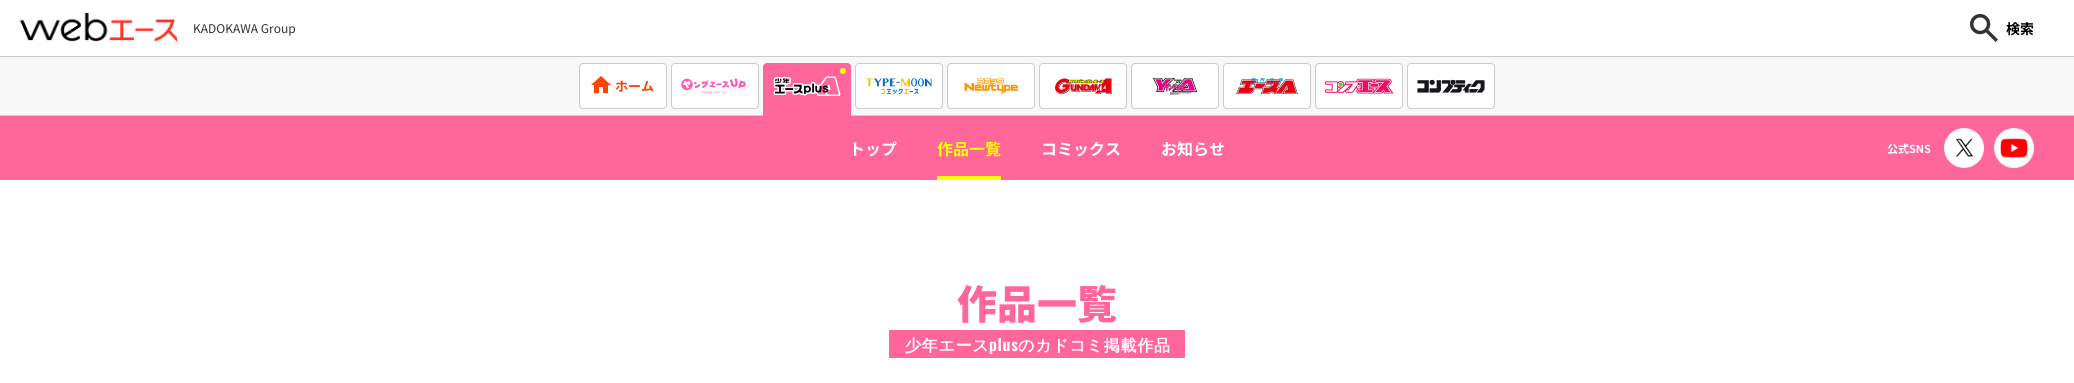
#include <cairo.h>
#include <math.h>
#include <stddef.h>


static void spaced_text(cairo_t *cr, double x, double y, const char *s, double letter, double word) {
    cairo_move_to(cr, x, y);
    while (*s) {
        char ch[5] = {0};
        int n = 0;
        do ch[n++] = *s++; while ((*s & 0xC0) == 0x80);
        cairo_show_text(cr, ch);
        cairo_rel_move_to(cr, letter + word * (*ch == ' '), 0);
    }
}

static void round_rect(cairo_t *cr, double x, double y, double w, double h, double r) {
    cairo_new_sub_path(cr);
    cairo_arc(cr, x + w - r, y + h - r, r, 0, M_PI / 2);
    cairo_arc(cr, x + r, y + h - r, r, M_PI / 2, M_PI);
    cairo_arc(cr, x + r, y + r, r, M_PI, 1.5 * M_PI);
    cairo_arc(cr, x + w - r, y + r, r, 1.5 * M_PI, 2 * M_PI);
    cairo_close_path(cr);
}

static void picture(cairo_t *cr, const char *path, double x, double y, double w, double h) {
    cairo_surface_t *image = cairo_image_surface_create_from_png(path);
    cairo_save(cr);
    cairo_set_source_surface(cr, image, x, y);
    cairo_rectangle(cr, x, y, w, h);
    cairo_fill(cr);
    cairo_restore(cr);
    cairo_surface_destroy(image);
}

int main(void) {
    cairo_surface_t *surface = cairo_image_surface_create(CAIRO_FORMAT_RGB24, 2074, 383);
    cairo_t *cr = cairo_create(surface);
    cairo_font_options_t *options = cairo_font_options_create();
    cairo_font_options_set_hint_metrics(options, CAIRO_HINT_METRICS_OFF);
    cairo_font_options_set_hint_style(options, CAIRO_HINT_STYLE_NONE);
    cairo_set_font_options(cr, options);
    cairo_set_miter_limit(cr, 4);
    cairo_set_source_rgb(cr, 1, 1, 1);
    cairo_paint(cr);
    picture(cr, "img1.png", 20, 13, 157, 29);
    cairo_select_font_face(cr, "Noto Sans JP Thin", CAIRO_FONT_SLANT_NORMAL, CAIRO_FONT_WEIGHT_NORMAL);
    cairo_set_font_size(cr, 12);
    cairo_set_source_rgb(cr, 0.2, 0.2, 0.2);
    cairo_move_to(cr, 193, 33);
    cairo_show_text(cr, "KADOKAWA Group");
    picture(cr, "img2.png", 1970, 14, 28, 28);
    cairo_select_font_face(cr, "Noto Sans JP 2 Thin", CAIRO_FONT_SLANT_NORMAL, CAIRO_FONT_WEIGHT_NORMAL);
    cairo_set_font_size(cr, 14);
    cairo_set_source_rgb(cr, 0, 0, 0);
    cairo_move_to(cr, 2006, 34);
    cairo_show_text(cr, "検索");
    cairo_set_source_rgb(cr, 0.969, 0.969, 0.969);
    cairo_rectangle(cr, 0, 57, 2074, 58);
    cairo_fill(cr);
    cairo_set_source_rgb(cr, 0.8, 0.8, 0.8);
    cairo_rectangle(cr, 0, 56, 2074, 1);
    cairo_fill(cr);
    cairo_rectangle(cr, 0, 115, 2074, 1);
    cairo_fill(cr);
    cairo_set_source_rgb(cr, 1, 1, 1);
    round_rect(cr, 579.5, 63.5, 87, 45, 3.5);
    cairo_fill_preserve(cr);
    cairo_set_source_rgb(cr, 0.8, 0.8, 0.8);
    cairo_set_line_width(cr, 1);
    cairo_stroke(cr);
    picture(cr, "img3.png", 591, 76, 20, 17);
    cairo_set_font_size(cr, 13);
    cairo_set_source_rgb(cr, 1, 0.267, 0);
    cairo_move_to(cr, 615, 91);
    cairo_show_text(cr, "ホーム");
    cairo_set_source_rgb(cr, 1, 1, 1);
    round_rect(cr, 671.5, 63.5, 87, 45, 3.5);
    cairo_fill_preserve(cr);
    cairo_set_source_rgb(cr, 0.8, 0.8, 0.8);
    cairo_stroke(cr);
    picture(cr, "img4.png", 681, 78, 68, 16);
    cairo_set_source_rgb(cr, 1, 0.4, 0.6);
    cairo_rectangle(cr, 763, 109, 88, 7);
    cairo_fill(cr);
    cairo_new_path(cr);
    cairo_move_to(cr, 767, 63.5);
    cairo_line_to(cr, 847, 63.5);
    cairo_curve_to(cr, 849, 63.5, 850.5, 65, 850.5, 67);
    cairo_line_to(cr, 850.5, 108.5);
    cairo_line_to(cr, 763.5, 108.5);
    cairo_line_to(cr, 763.5, 67);
    cairo_curve_to(cr, 763.5, 65, 765, 63.5, 767, 63.5);
    cairo_close_path(cr);
    cairo_fill_preserve(cr);
    cairo_stroke(cr);
    cairo_set_source_rgb(cr, 1, 1, 0);
    cairo_arc(cr, 843, 71, 3, 0, 2 * M_PI);
    cairo_fill(cr);
    picture(cr, "img5.png", 773, 76, 68, 20);
    cairo_set_source_rgb(cr, 1, 1, 1);
    round_rect(cr, 855.5, 63.5, 87, 45, 3.5);
    cairo_fill_preserve(cr);
    cairo_set_source_rgb(cr, 0.8, 0.8, 0.8);
    cairo_stroke(cr);
    picture(cr, "img6.png", 866, 78, 66, 17);
    cairo_set_source_rgb(cr, 1, 1, 1);
    round_rect(cr, 947.5, 63.5, 87, 45, 3.5);
    cairo_fill_preserve(cr);
    cairo_set_source_rgb(cr, 0.8, 0.8, 0.8);
    cairo_stroke(cr);
    picture(cr, "img7.png", 964, 78, 54, 16);
    cairo_set_source_rgb(cr, 1, 1, 1);
    round_rect(cr, 1039.5, 63.5, 87, 45, 3.5);
    cairo_fill_preserve(cr);
    cairo_set_source_rgb(cr, 0.8, 0.8, 0.8);
    cairo_stroke(cr);
    picture(cr, "img8.png", 1055, 78, 57, 16);
    cairo_set_source_rgb(cr, 1, 1, 1);
    round_rect(cr, 1131.5, 63.5, 87, 45, 3.5);
    cairo_fill_preserve(cr);
    cairo_set_source_rgb(cr, 0.8, 0.8, 0.8);
    cairo_stroke(cr);
    picture(cr, "img9.png", 1153, 77, 44, 18);
    cairo_set_source_rgb(cr, 1, 1, 1);
    round_rect(cr, 1223.5, 63.5, 87, 45, 3.5);
    cairo_fill_preserve(cr);
    cairo_set_source_rgb(cr, 0.8, 0.8, 0.8);
    cairo_stroke(cr);
    picture(cr, "img10.png", 1236, 78, 62, 16);
    cairo_set_source_rgb(cr, 1, 1, 1);
    round_rect(cr, 1315.5, 63.5, 87, 45, 3.5);
    cairo_fill_preserve(cr);
    cairo_set_source_rgb(cr, 0.8, 0.8, 0.8);
    cairo_stroke(cr);
    picture(cr, "img11.png", 1324, 78, 70, 16);
    cairo_set_source_rgb(cr, 1, 1, 1);
    round_rect(cr, 1407.5, 63.5, 87, 45, 3.5);
    cairo_fill_preserve(cr);
    cairo_set_source_rgb(cr, 0.8, 0.8, 0.8);
    cairo_stroke(cr);
    picture(cr, "img12.png", 1417, 79, 68, 14);
    cairo_set_source_rgb(cr, 1, 0.4, 0.6);
    cairo_rectangle(cr, 0, 116, 2074, 64);
    cairo_fill(cr);
    cairo_set_font_size(cr, 16);
    cairo_set_source_rgb(cr, 1, 1, 1);
    cairo_move_to(cr, 849, 155);
    cairo_show_text(cr, "トップ");
    cairo_set_source_rgb(cr, 1, 1, 0);
    cairo_move_to(cr, 937, 155);
    cairo_show_text(cr, "作品一覧");
    cairo_rectangle(cr, 937, 176, 64, 4);
    cairo_fill(cr);
    cairo_set_source_rgb(cr, 1, 1, 1);
    cairo_move_to(cr, 1041, 155);
    cairo_show_text(cr, "コミックス");
    cairo_move_to(cr, 1161, 155);
    cairo_show_text(cr, "お知らせ");
    cairo_set_font_size(cr, 11);
    cairo_move_to(cr, 1887, 153);
    cairo_show_text(cr, "公式SNS");
    picture(cr, "img13.png", 1944, 128, 40, 40);
    picture(cr, "img14.png", 1994, 128, 40, 40);
    cairo_select_font_face(cr, "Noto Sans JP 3 Thin", CAIRO_FONT_SLANT_NORMAL, CAIRO_FONT_WEIGHT_NORMAL);
    cairo_set_font_size(cr, 40);
    cairo_set_source_rgb(cr, 1, 0.4, 0.6);
    cairo_move_to(cr, 957, 319);
    cairo_show_text(cr, "作品一覧");
    cairo_rectangle(cr, 889, 330, 296, 28);
    cairo_fill(cr);
    cairo_select_font_face(cr, "WenQuanYi Zen Hei", CAIRO_FONT_SLANT_NORMAL, CAIRO_FONT_WEIGHT_BOLD);
    cairo_set_font_size(cr, 16);
    cairo_set_source_rgb(cr, 1, 1, 1);
    spaced_text(cr, 905, 351, "少年エース", 0.75, 0);
    cairo_select_font_face(cr, "Oswald SemiBold", CAIRO_FONT_SLANT_NORMAL, CAIRO_FONT_WEIGHT_NORMAL);
    spaced_text(cr, 989, 351, "plus", 0.75, 0);
    cairo_select_font_face(cr, "WenQuanYi Zen Hei", CAIRO_FONT_SLANT_NORMAL, CAIRO_FONT_WEIGHT_BOLD);
    spaced_text(cr, 1018, 351, "のカドコミ掲載作品", 0.75, 0);
    cairo_surface_write_to_png(surface, "page.png");
    cairo_font_options_destroy(options);
    cairo_destroy(cr);
    cairo_surface_destroy(surface);
    return 0;
}
